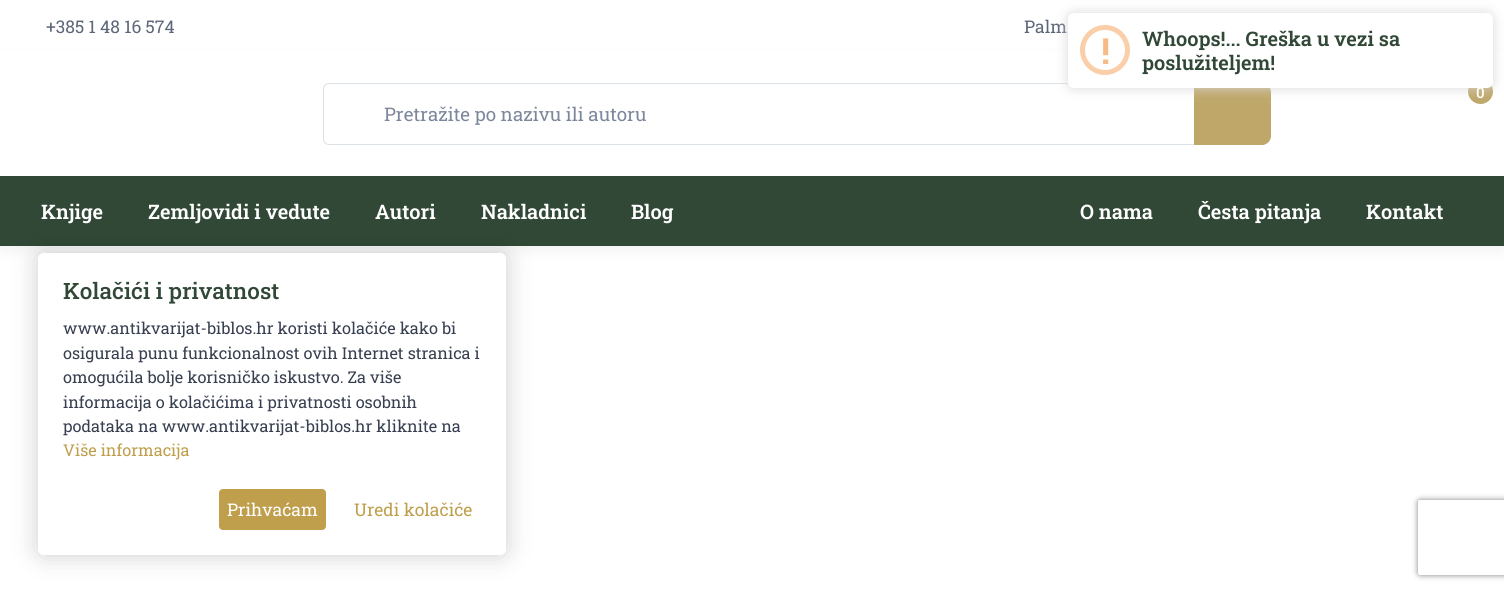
#include <cairo.h>
#include <math.h>
#include <stddef.h>


static void round_rect(cairo_t *cr, double x, double y, double w, double h, double r) {
    cairo_new_sub_path(cr);
    cairo_arc(cr, x + w - r, y + h - r, r, 0, M_PI / 2);
    cairo_arc(cr, x + r, y + h - r, r, M_PI / 2, M_PI);
    cairo_arc(cr, x + r, y + r, r, M_PI, 1.5 * M_PI);
    cairo_arc(cr, x + w - r, y + r, r, 1.5 * M_PI, 2 * M_PI);
    cairo_close_path(cr);
}

static void shadow(cairo_t *cr, double x, double y, double w, double h, double r, double blur, double alpha) {
    cairo_push_group_with_content(cr, CAIRO_CONTENT_ALPHA);
    cairo_set_operator(cr, CAIRO_OPERATOR_SOURCE);
    for (int i = 15; i >= -15 && fmin(w, h) + blur * i / 3 > 0; i -= 2) {
        double e = blur * i / 6;
        cairo_set_source_rgba(cr, 0, 0, 0, alpha * erfc((i - 1) / 8.5) / 2);
        round_rect(cr, x - e, y - e, w + 2 * e, h + 2 * e, fmax(0, fmin(r + e + blur * .6, fmin(w, h) / 2 + e)));
        cairo_fill(cr);
    }
    cairo_pattern_t *soft = cairo_pop_group(cr);
    cairo_mask(cr, soft);
    cairo_pattern_destroy(soft);
}

int main(void) {
    cairo_surface_t *surface = cairo_image_surface_create(CAIRO_FORMAT_RGB24, 1504, 592);
    cairo_t *cr = cairo_create(surface);
    cairo_font_options_t *options = cairo_font_options_create();
    cairo_font_options_set_hint_metrics(options, CAIRO_HINT_METRICS_OFF);
    cairo_font_options_set_hint_style(options, CAIRO_HINT_STYLE_NONE);
    cairo_set_font_options(cr, options);
    cairo_set_miter_limit(cr, 4);
    cairo_set_source_rgb(cr, 1, 1, 1);
    cairo_paint(cr);
    cairo_select_font_face(cr, "Roboto Slab", CAIRO_FONT_SLANT_NORMAL, CAIRO_FONT_WEIGHT_NORMAL);
    cairo_set_font_size(cr, 17.5);
    cairo_set_source_rgb(cr, 0.365, 0.404, 0.478);
    cairo_move_to(cr, 46, 33);
    cairo_show_text(cr, "+385 1 48 16 574");
    cairo_move_to(cr, 1024, 33);
    cairo_show_text(cr, "Palm");
    cairo_set_source_rgb(cr, 0, 0, 0);
    shadow(cr, 1, 58, 1503, 192, 0, 7.5, 0.06);
    cairo_set_source_rgb(cr, 1, 1, 1);
    cairo_rectangle(cr, 0, 51, 1504, 125);
    cairo_fill(cr);
    cairo_set_source_rgb(cr, 0.749, 0.655, 0.416);
    cairo_arc(cr, 1480.5, 91.5, 12.5, 0, 2 * M_PI);
    cairo_fill(cr);
    cairo_new_path(cr);
    cairo_move_to(cr, 329, 83.5);
    cairo_line_to(cr, 1194.5, 83.5);
    cairo_line_to(cr, 1194.5, 144.5);
    cairo_line_to(cr, 329, 144.5);
    cairo_curve_to(cr, 326, 144.5, 323.5, 142, 323.5, 139);
    cairo_line_to(cr, 323.5, 89);
    cairo_curve_to(cr, 323.5, 86, 326, 83.5, 329, 83.5);
    cairo_close_path(cr);
    cairo_set_source_rgb(cr, 0.855, 0.882, 0.906);
    cairo_set_line_width(cr, 1);
    cairo_stroke(cr);
    cairo_set_source_rgb(cr, 0.749, 0.655, 0.416);
    cairo_new_path(cr);
    cairo_move_to(cr, 1194.5, 83.5);
    cairo_line_to(cr, 1262, 83.5);
    cairo_curve_to(cr, 1266.5, 83.5, 1270.5, 87.5, 1270.5, 92);
    cairo_line_to(cr, 1270.5, 136);
    cairo_curve_to(cr, 1270.5, 140.5, 1266.5, 144.5, 1262, 144.5);
    cairo_line_to(cr, 1194.5, 144.5);
    cairo_close_path(cr);
    cairo_fill_preserve(cr);
    cairo_stroke(cr);
    cairo_set_source_rgb(cr, 0.851, 0.851, 0.851);
    shadow(cr, 1068, 13, 425, 75, 6, 6, 1);
    cairo_set_source_rgb(cr, 1, 1, 1);
    round_rect(cr, 1068, 13, 425, 75, 6);
    cairo_fill(cr);
    cairo_arc(cr, 1105, 50, 22.5, 0, 2 * M_PI);
    cairo_set_source_rgb(cr, 0.98, 0.808, 0.659);
    cairo_set_line_width(cr, 5);
    cairo_stroke(cr);
    cairo_select_font_face(cr, "Roboto Slab", CAIRO_FONT_SLANT_NORMAL, CAIRO_FONT_WEIGHT_BOLD);
    cairo_set_font_size(cr, 36);
    cairo_set_source_rgb(cr, 0.973, 0.733, 0.525);
    cairo_move_to(cr, 1101, 64);
    cairo_show_text(cr, "!");
    cairo_select_font_face(cr, "Roboto Slab SemiBold", CAIRO_FONT_SLANT_NORMAL, CAIRO_FONT_WEIGHT_NORMAL);
    cairo_set_font_size(cr, 20);
    cairo_set_source_rgb(cr, 0.192, 0.282, 0.216);
    cairo_move_to(cr, 1142, 46);
    cairo_show_text(cr, "Whoops!... Greška u vezi sa");
    cairo_move_to(cr, 1142, 70);
    cairo_show_text(cr, "poslužiteljem!");
    cairo_rectangle(cr, 0, 176, 1504, 70);
    cairo_fill(cr);
    cairo_select_font_face(cr, "Roboto Slab Medium", CAIRO_FONT_SLANT_NORMAL, CAIRO_FONT_WEIGHT_NORMAL);
    cairo_set_font_size(cr, 15);
    cairo_set_source_rgb(cr, 1, 1, 1);
    cairo_move_to(cr, 1476, 98);
    cairo_show_text(cr, "0");
    cairo_select_font_face(cr, "Roboto Slab", CAIRO_FONT_SLANT_NORMAL, CAIRO_FONT_WEIGHT_NORMAL);
    cairo_set_font_size(cr, 18.75);
    cairo_set_source_rgb(cr, 0.49, 0.529, 0.612);
    cairo_move_to(cr, 384, 121);
    cairo_show_text(cr, "Pretražite po nazivu ili autoru");
    cairo_select_font_face(cr, "Roboto Slab SemiBold", CAIRO_FONT_SLANT_NORMAL, CAIRO_FONT_WEIGHT_NORMAL);
    cairo_set_font_size(cr, 20);
    cairo_set_source_rgb(cr, 1, 1, 1);
    cairo_move_to(cr, 41, 219);
    cairo_show_text(cr, "Knjige");
    cairo_move_to(cr, 148, 219);
    cairo_show_text(cr, "Zemljovidi i vedute");
    cairo_move_to(cr, 375, 219);
    cairo_show_text(cr, "Autori");
    cairo_move_to(cr, 481, 219);
    cairo_show_text(cr, "Nakladnici");
    cairo_move_to(cr, 631, 219);
    cairo_show_text(cr, "Blog");
    cairo_move_to(cr, 1080, 219);
    cairo_show_text(cr, "O nama");
    cairo_move_to(cr, 1198, 219);
    cairo_show_text(cr, "Česta pitanja");
    cairo_move_to(cr, 1366, 219);
    cairo_show_text(cr, "Kontakt");
    cairo_set_source_rgb(cr, 0, 0, 0);
    shadow(cr, 38, 253, 468, 302, 6, 12.5, 0.2);
    cairo_set_source_rgb(cr, 1, 1, 1);
    round_rect(cr, 38, 253, 468, 302, 6);
    cairo_fill(cr);
    cairo_select_font_face(cr, "Roboto Slab Medium", CAIRO_FONT_SLANT_NORMAL, CAIRO_FONT_WEIGHT_NORMAL);
    cairo_set_font_size(cr, 22.5);
    cairo_set_source_rgb(cr, 0.192, 0.282, 0.216);
    cairo_move_to(cr, 63, 299);
    cairo_show_text(cr, "Kolačići i privatnost");
    cairo_select_font_face(cr, "Roboto Slab", CAIRO_FONT_SLANT_NORMAL, CAIRO_FONT_WEIGHT_NORMAL);
    cairo_set_font_size(cr, 16.25);
    cairo_set_source_rgb(cr, 0.216, 0.247, 0.314);
    cairo_move_to(cr, 63, 334);
    cairo_show_text(cr, "www.antikvarijat-biblos.hr koristi kolačiće kako bi");
    cairo_move_to(cr, 63, 359);
    cairo_show_text(cr, "osigurala punu funkcionalnost ovih Internet stranica i");
    cairo_move_to(cr, 63, 383);
    cairo_show_text(cr, "omogućila bolje korisničko iskustvo. Za više");
    cairo_move_to(cr, 63, 408);
    cairo_show_text(cr, "informacija o kolačićima i privatnosti osobnih");
    cairo_move_to(cr, 63, 432);
    cairo_show_text(cr, "podataka na www.antikvarijat-biblos.hr kliknite na");
    cairo_set_source_rgb(cr, 0.749, 0.624, 0.298);
    cairo_move_to(cr, 63, 456);
    cairo_show_text(cr, "Više informacija");
    round_rect(cr, 219, 489, 107, 41, 4);
    cairo_fill(cr);
    cairo_set_font_size(cr, 17.5);
    cairo_set_source_rgb(cr, 1, 1, 1);
    cairo_move_to(cr, 227, 516);
    cairo_show_text(cr, "Prihvaćam");
    cairo_set_source_rgb(cr, 0.749, 0.624, 0.298);
    cairo_move_to(cr, 354, 516);
    cairo_show_text(cr, "Uredi kolačiće");
    cairo_save(cr);
    cairo_set_fill_rule(cr, CAIRO_FILL_RULE_EVEN_ODD);
    cairo_new_path(cr);
    cairo_move_to(cr, 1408, 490);
    cairo_line_to(cr, 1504, 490);
    cairo_line_to(cr, 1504, 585);
    cairo_line_to(cr, 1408, 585);
    cairo_close_path(cr);
    cairo_move_to(cr, 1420.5, 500);
    cairo_line_to(cr, 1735.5, 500);
    cairo_curve_to(cr, 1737, 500, 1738, 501, 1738, 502.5);
    cairo_line_to(cr, 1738, 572.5);
    cairo_curve_to(cr, 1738, 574, 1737, 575, 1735.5, 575);
    cairo_line_to(cr, 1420.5, 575);
    cairo_curve_to(cr, 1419, 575, 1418, 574, 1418, 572.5);
    cairo_line_to(cr, 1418, 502.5);
    cairo_curve_to(cr, 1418, 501, 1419, 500, 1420.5, 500);
    cairo_close_path(cr);
    cairo_clip(cr);
    cairo_set_source_rgb(cr, 0.502, 0.502, 0.502);
    shadow(cr, 1418, 500, 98, 75, 2.5, 3, 1);
    cairo_restore(cr);
    cairo_surface_write_to_png(surface, "page.png");
    cairo_font_options_destroy(options);
    cairo_destroy(cr);
    cairo_surface_destroy(surface);
    return 0;
}
